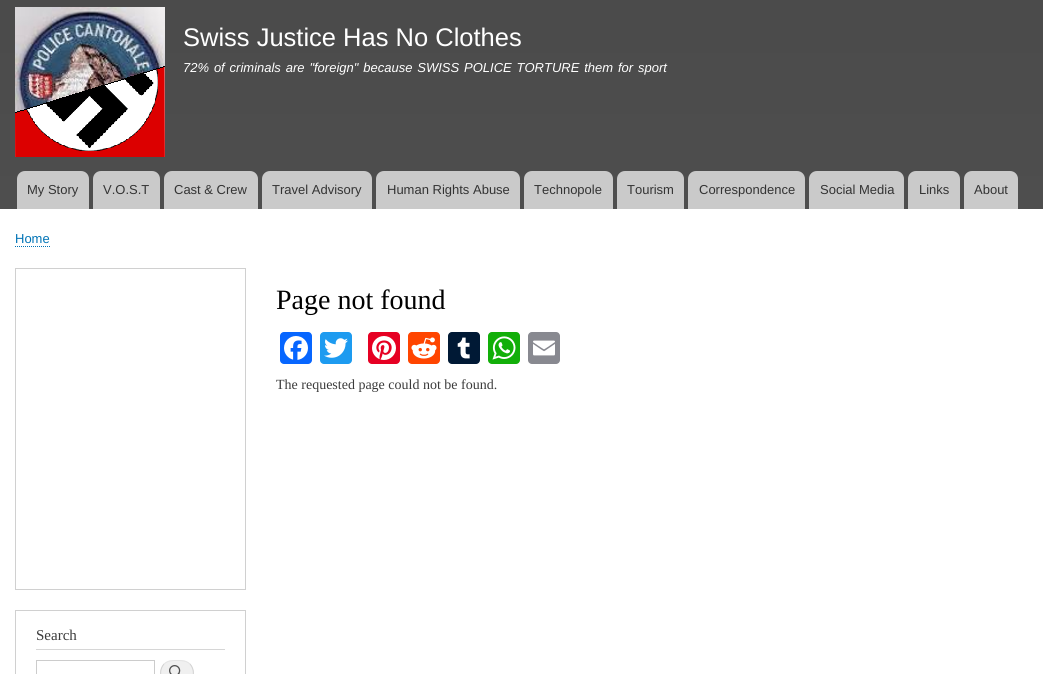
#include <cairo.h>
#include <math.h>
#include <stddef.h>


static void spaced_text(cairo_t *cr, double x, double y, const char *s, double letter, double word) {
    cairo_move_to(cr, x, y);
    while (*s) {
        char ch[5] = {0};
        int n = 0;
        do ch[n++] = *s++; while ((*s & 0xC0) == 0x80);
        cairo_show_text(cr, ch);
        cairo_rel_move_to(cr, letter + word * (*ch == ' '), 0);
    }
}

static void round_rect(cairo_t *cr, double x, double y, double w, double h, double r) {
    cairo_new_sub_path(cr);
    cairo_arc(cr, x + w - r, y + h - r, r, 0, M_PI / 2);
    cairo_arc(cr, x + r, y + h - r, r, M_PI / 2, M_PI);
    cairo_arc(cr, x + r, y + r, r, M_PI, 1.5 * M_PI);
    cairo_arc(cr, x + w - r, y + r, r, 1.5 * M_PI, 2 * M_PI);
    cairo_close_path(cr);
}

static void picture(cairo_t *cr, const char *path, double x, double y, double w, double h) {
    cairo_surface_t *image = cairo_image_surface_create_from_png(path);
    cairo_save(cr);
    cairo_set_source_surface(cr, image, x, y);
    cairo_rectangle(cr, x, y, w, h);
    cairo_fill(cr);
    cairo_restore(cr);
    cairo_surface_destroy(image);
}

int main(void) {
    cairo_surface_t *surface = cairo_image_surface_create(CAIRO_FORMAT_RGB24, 1043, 674);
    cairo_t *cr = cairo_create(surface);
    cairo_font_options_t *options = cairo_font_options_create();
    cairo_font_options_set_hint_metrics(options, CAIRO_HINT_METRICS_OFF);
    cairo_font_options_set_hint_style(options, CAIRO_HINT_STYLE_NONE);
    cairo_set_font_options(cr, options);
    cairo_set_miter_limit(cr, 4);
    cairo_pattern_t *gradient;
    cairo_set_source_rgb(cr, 1, 1, 1);
    cairo_paint(cr);
    gradient = cairo_pattern_create_linear(522, -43, 522, 209);
    cairo_pattern_add_color_stop_rgba(gradient, 0, 0.29, 0.29, 0.29, 1);
    cairo_pattern_add_color_stop_rgba(gradient, 1, 0.306, 0.306, 0.306, 1);
    cairo_set_source(cr, gradient);
    cairo_pattern_destroy(gradient);
    cairo_rectangle(cr, 0, 0, 1043, 209);
    cairo_fill(cr);
    picture(cr, "img1.png", 15, 7, 150, 150);
    cairo_select_font_face(cr, "Liberation Sans", CAIRO_FONT_SLANT_NORMAL, CAIRO_FONT_WEIGHT_NORMAL);
    cairo_set_font_size(cr, 25.5);
    cairo_set_source_rgb(cr, 1, 1, 1);
    cairo_move_to(cr, 183, 46);
    cairo_show_text(cr, "Swiss Justice Has No Clothes");
    cairo_select_font_face(cr, "Liberation Sans", CAIRO_FONT_SLANT_ITALIC, CAIRO_FONT_WEIGHT_NORMAL);
    cairo_set_font_size(cr, 13);
    spaced_text(cr, 183, 72, "72% of criminals are \"foreign\" because SWISS POLICE TORTURE them for sport", 0, 1.25);
    cairo_set_source_rgb(cr, 0.792, 0.792, 0.792);
    cairo_new_path(cr);
    cairo_move_to(cr, 25, 171);
    cairo_line_to(cr, 81, 171);
    cairo_curve_to(cr, 85.5, 171, 89, 174.5, 89, 179);
    cairo_line_to(cr, 89, 209);
    cairo_line_to(cr, 17, 209);
    cairo_line_to(cr, 17, 179);
    cairo_curve_to(cr, 17, 174.5, 20.5, 171, 25, 171);
    cairo_close_path(cr);
    cairo_fill(cr);
    cairo_select_font_face(cr, "Liberation Sans", CAIRO_FONT_SLANT_NORMAL, CAIRO_FONT_WEIGHT_NORMAL);
    cairo_set_source_rgb(cr, 0.2, 0.2, 0.2);
    cairo_move_to(cr, 27, 194);
    cairo_show_text(cr, "My Story");
    cairo_set_source_rgb(cr, 0.792, 0.792, 0.792);
    cairo_new_path(cr);
    cairo_move_to(cr, 101, 171);
    cairo_line_to(cr, 152, 171);
    cairo_curve_to(cr, 156.5, 171, 160, 174.5, 160, 179);
    cairo_line_to(cr, 160, 209);
    cairo_line_to(cr, 93, 209);
    cairo_line_to(cr, 93, 179);
    cairo_curve_to(cr, 93, 174.5, 96.5, 171, 101, 171);
    cairo_close_path(cr);
    cairo_fill(cr);
    cairo_set_source_rgb(cr, 0.2, 0.2, 0.2);
    cairo_move_to(cr, 103, 194);
    cairo_show_text(cr, "V.O.S.T");
    cairo_set_source_rgb(cr, 0.792, 0.792, 0.792);
    cairo_new_path(cr);
    cairo_move_to(cr, 172, 171);
    cairo_line_to(cr, 250, 171);
    cairo_curve_to(cr, 254.5, 171, 258, 174.5, 258, 179);
    cairo_line_to(cr, 258, 209);
    cairo_line_to(cr, 164, 209);
    cairo_line_to(cr, 164, 179);
    cairo_curve_to(cr, 164, 174.5, 167.5, 171, 172, 171);
    cairo_close_path(cr);
    cairo_fill(cr);
    cairo_set_source_rgb(cr, 0.2, 0.2, 0.2);
    cairo_move_to(cr, 174, 194);
    cairo_show_text(cr, "Cast & Crew");
    cairo_set_source_rgb(cr, 0.792, 0.792, 0.792);
    cairo_new_path(cr);
    cairo_move_to(cr, 270, 171);
    cairo_line_to(cr, 364, 171);
    cairo_curve_to(cr, 368.5, 171, 372, 174.5, 372, 179);
    cairo_line_to(cr, 372, 209);
    cairo_line_to(cr, 262, 209);
    cairo_line_to(cr, 262, 179);
    cairo_curve_to(cr, 262, 174.5, 265.5, 171, 270, 171);
    cairo_close_path(cr);
    cairo_fill(cr);
    cairo_set_source_rgb(cr, 0.2, 0.2, 0.2);
    cairo_move_to(cr, 272, 194);
    cairo_show_text(cr, "Travel Advisory");
    cairo_set_source_rgb(cr, 0.792, 0.792, 0.792);
    cairo_new_path(cr);
    cairo_move_to(cr, 384, 171);
    cairo_line_to(cr, 512, 171);
    cairo_curve_to(cr, 516.5, 171, 520, 174.5, 520, 179);
    cairo_line_to(cr, 520, 209);
    cairo_line_to(cr, 376, 209);
    cairo_line_to(cr, 376, 179);
    cairo_curve_to(cr, 376, 174.5, 379.5, 171, 384, 171);
    cairo_close_path(cr);
    cairo_fill(cr);
    cairo_set_source_rgb(cr, 0.2, 0.2, 0.2);
    cairo_move_to(cr, 387, 194);
    cairo_show_text(cr, "Human Rights Abuse");
    cairo_set_source_rgb(cr, 0.792, 0.792, 0.792);
    cairo_new_path(cr);
    cairo_move_to(cr, 532, 171);
    cairo_line_to(cr, 605, 171);
    cairo_curve_to(cr, 609.5, 171, 613, 174.5, 613, 179);
    cairo_line_to(cr, 613, 209);
    cairo_line_to(cr, 524, 209);
    cairo_line_to(cr, 524, 179);
    cairo_curve_to(cr, 524, 174.5, 527.5, 171, 532, 171);
    cairo_close_path(cr);
    cairo_fill(cr);
    cairo_set_source_rgb(cr, 0.2, 0.2, 0.2);
    cairo_move_to(cr, 534, 194);
    cairo_show_text(cr, "Technopole");
    cairo_set_source_rgb(cr, 0.792, 0.792, 0.792);
    cairo_new_path(cr);
    cairo_move_to(cr, 625, 171);
    cairo_line_to(cr, 676, 171);
    cairo_curve_to(cr, 680.5, 171, 684, 174.5, 684, 179);
    cairo_line_to(cr, 684, 209);
    cairo_line_to(cr, 617, 209);
    cairo_line_to(cr, 617, 179);
    cairo_curve_to(cr, 617, 174.5, 620.5, 171, 625, 171);
    cairo_close_path(cr);
    cairo_fill(cr);
    cairo_set_source_rgb(cr, 0.2, 0.2, 0.2);
    cairo_move_to(cr, 627, 194);
    cairo_show_text(cr, "Tourism");
    cairo_set_source_rgb(cr, 0.792, 0.792, 0.792);
    cairo_new_path(cr);
    cairo_move_to(cr, 696, 171);
    cairo_line_to(cr, 797, 171);
    cairo_curve_to(cr, 801.5, 171, 805, 174.5, 805, 179);
    cairo_line_to(cr, 805, 209);
    cairo_line_to(cr, 688, 209);
    cairo_line_to(cr, 688, 179);
    cairo_curve_to(cr, 688, 174.5, 691.5, 171, 696, 171);
    cairo_close_path(cr);
    cairo_fill(cr);
    cairo_set_source_rgb(cr, 0.2, 0.2, 0.2);
    cairo_move_to(cr, 699, 194);
    cairo_show_text(cr, "Correspondence");
    cairo_set_source_rgb(cr, 0.792, 0.792, 0.792);
    cairo_new_path(cr);
    cairo_move_to(cr, 817, 171);
    cairo_line_to(cr, 896, 171);
    cairo_curve_to(cr, 900.5, 171, 904, 174.5, 904, 179);
    cairo_line_to(cr, 904, 209);
    cairo_line_to(cr, 809, 209);
    cairo_line_to(cr, 809, 179);
    cairo_curve_to(cr, 809, 174.5, 812.5, 171, 817, 171);
    cairo_close_path(cr);
    cairo_fill(cr);
    cairo_set_source_rgb(cr, 0.2, 0.2, 0.2);
    cairo_move_to(cr, 820, 194);
    cairo_show_text(cr, "Social Media");
    cairo_set_source_rgb(cr, 0.792, 0.792, 0.792);
    cairo_new_path(cr);
    cairo_move_to(cr, 916, 171);
    cairo_line_to(cr, 952, 171);
    cairo_curve_to(cr, 956.5, 171, 960, 174.5, 960, 179);
    cairo_line_to(cr, 960, 209);
    cairo_line_to(cr, 908, 209);
    cairo_line_to(cr, 908, 179);
    cairo_curve_to(cr, 908, 174.5, 911.5, 171, 916, 171);
    cairo_close_path(cr);
    cairo_fill(cr);
    cairo_set_source_rgb(cr, 0.2, 0.2, 0.2);
    cairo_move_to(cr, 919, 194);
    cairo_show_text(cr, "Links");
    cairo_set_source_rgb(cr, 0.792, 0.792, 0.792);
    cairo_new_path(cr);
    cairo_move_to(cr, 972, 171);
    cairo_line_to(cr, 1010, 171);
    cairo_curve_to(cr, 1014.5, 171, 1018, 174.5, 1018, 179);
    cairo_line_to(cr, 1018, 209);
    cairo_line_to(cr, 964, 209);
    cairo_line_to(cr, 964, 179);
    cairo_curve_to(cr, 964, 174.5, 967.5, 171, 972, 171);
    cairo_close_path(cr);
    cairo_fill(cr);
    cairo_set_source_rgb(cr, 0.2, 0.2, 0.2);
    cairo_move_to(cr, 974, 194);
    cairo_show_text(cr, "About");
    cairo_set_source_rgb(cr, 0, 0.451, 0.714);
    cairo_move_to(cr, 15, 243);
    cairo_show_text(cr, "Home");
    cairo_new_path(cr);
    cairo_move_to(cr, 15, 246.5);
    cairo_line_to(cr, 50, 246.5);
    cairo_set_line_width(cr, 1);
    cairo_set_dash(cr, (double[]){1, 1}, 2, 0);
    cairo_stroke(cr);
    cairo_select_font_face(cr, "Liberation Serif", CAIRO_FONT_SLANT_NORMAL, CAIRO_FONT_WEIGHT_NORMAL);
    cairo_set_font_size(cr, 28);
    cairo_set_source_rgb(cr, 0, 0, 0);
    cairo_move_to(cr, 276, 309);
    cairo_show_text(cr, "Page not found");
    cairo_set_source_rgb(cr, 0.031, 0.4, 1);
    round_rect(cr, 280, 332, 32, 32, 4);
    cairo_fill(cr);
    picture(cr, "img2.png", 284, 336, 24, 24);
    cairo_set_source_rgb(cr, 0.114, 0.608, 0.941);
    round_rect(cr, 320, 332, 32, 32, 4);
    cairo_fill(cr);
    picture(cr, "img3.png", 324, 338, 24, 20);
    cairo_set_source_rgb(cr, 0.902, 0, 0.137);
    round_rect(cr, 368, 332, 32, 32, 4);
    cairo_fill(cr);
    picture(cr, "img4.png", 372, 336, 24, 24);
    cairo_set_source_rgb(cr, 1, 0.271, 0);
    round_rect(cr, 408, 332, 32, 32, 4);
    cairo_fill(cr);
    picture(cr, "img5.png", 411, 337, 26, 22);
    cairo_set_source_rgb(cr, 0, 0.098, 0.208);
    round_rect(cr, 448, 332, 32, 32, 4);
    cairo_fill(cr);
    picture(cr, "img6.png", 457, 337, 13, 22);
    cairo_set_source_rgb(cr, 0.071, 0.686, 0.039);
    round_rect(cr, 488, 332, 32, 32, 4);
    cairo_fill(cr);
    picture(cr, "img7.png", 492, 336, 24, 24);
    cairo_set_source_rgb(cr, 0.533, 0.537, 0.565);
    round_rect(cr, 528, 332, 32, 32, 4);
    cairo_fill(cr);
    picture(cr, "img8.png", 533, 340, 22, 16);
    cairo_set_font_size(cr, 14);
    cairo_set_source_rgb(cr, 0.231, 0.231, 0.231);
    cairo_move_to(cr, 276, 389);
    cairo_show_text(cr, "The requested page could not be found.");
    cairo_rectangle(cr, 15.5, 268.5, 230, 321);
    cairo_set_source_rgb(cr, 0.816, 0.816, 0.816);
    cairo_set_dash(cr, NULL, 0, 0);
    cairo_stroke(cr);
    cairo_rectangle(cr, 15.5, 610.5, 230, 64);
    cairo_stroke(cr);
    cairo_set_source_rgb(cr, 0.839, 0.839, 0.839);
    cairo_rectangle(cr, 36, 649, 189, 1);
    cairo_fill(cr);
    cairo_set_font_size(cr, 15);
    cairo_set_source_rgb(cr, 0.231, 0.231, 0.231);
    cairo_move_to(cr, 36, 640);
    cairo_show_text(cr, "Search");
    cairo_rectangle(cr, 36.5, 660.5, 118, 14);
    cairo_set_source_rgb(cr, 0.8, 0.8, 0.8);
    cairo_stroke(cr);
    cairo_set_source_rgb(cr, 0.941, 0.941, 0.941);
    round_rect(cr, 160, 660, 34, 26, 13);
    cairo_fill(cr);
    picture(cr, "img9.png", 169, 665, 12, 9);
    cairo_new_path(cr);
    cairo_move_to(cr, 164, 664);
    cairo_curve_to(cr, 168, 660.5, 172, 660.5, 177, 660.5);
    cairo_curve_to(cr, 182, 660.5, 186, 660.5, 190, 664);
    cairo_set_source_rgb(cr, 0.894, 0.894, 0.894);
    cairo_stroke(cr);
    cairo_new_path(cr);
    cairo_move_to(cr, 190, 664);
    cairo_curve_to(cr, 194.5, 669, 194.5, 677, 190, 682);
    cairo_move_to(cr, 164, 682);
    cairo_curve_to(cr, 159.5, 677, 159.5, 669, 164, 664);
    cairo_set_source_rgb(cr, 0.824, 0.824, 0.824);
    cairo_stroke(cr);
    cairo_surface_write_to_png(surface, "page.png");
    cairo_font_options_destroy(options);
    cairo_destroy(cr);
    cairo_surface_destroy(surface);
    return 0;
}
